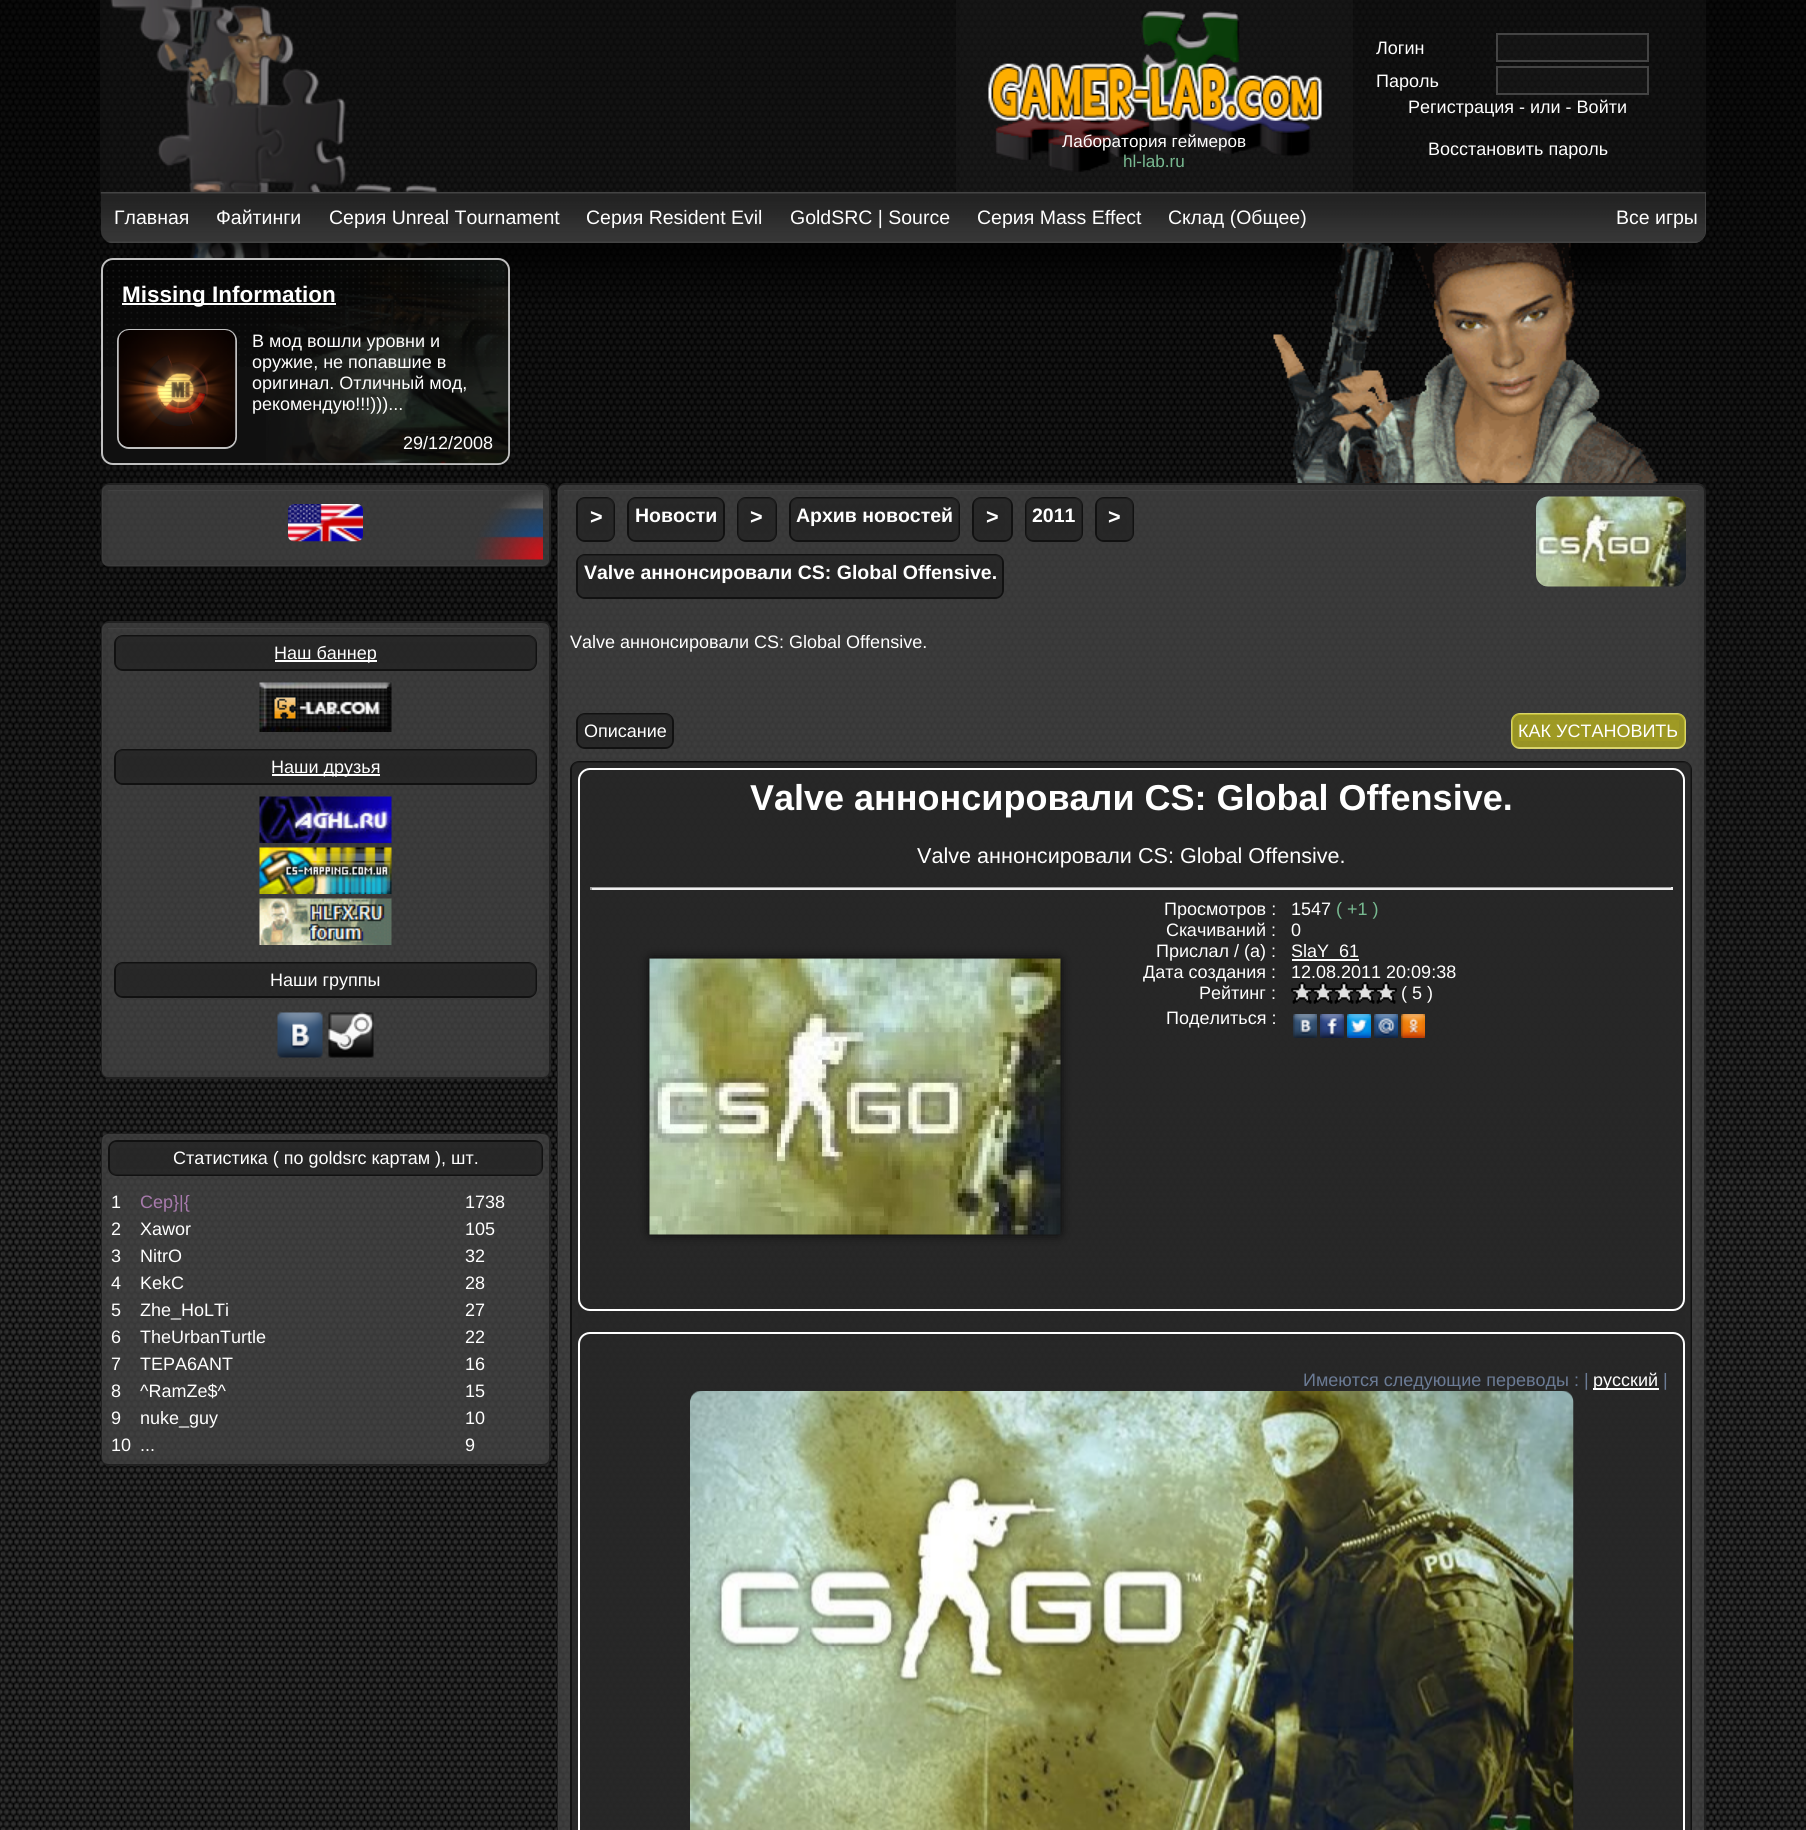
#include <cairo.h>
#include <math.h>
#include <stddef.h>


static void round_rect(cairo_t *cr, double x, double y, double w, double h, double r) {
    cairo_new_sub_path(cr);
    cairo_arc(cr, x + w - r, y + h - r, r, 0, M_PI / 2);
    cairo_arc(cr, x + r, y + h - r, r, M_PI / 2, M_PI);
    cairo_arc(cr, x + r, y + r, r, M_PI, 1.5 * M_PI);
    cairo_arc(cr, x + w - r, y + r, r, 1.5 * M_PI, 2 * M_PI);
    cairo_close_path(cr);
}

static void shadow(cairo_t *cr, double x, double y, double w, double h, double r, double blur, double alpha) {
    cairo_push_group_with_content(cr, CAIRO_CONTENT_ALPHA);
    cairo_set_operator(cr, CAIRO_OPERATOR_SOURCE);
    for (int i = 15; i >= -15 && fmin(w, h) + blur * i / 3 > 0; i -= 2) {
        double e = blur * i / 6;
        cairo_set_source_rgba(cr, 0, 0, 0, alpha * erfc((i - 1) / 8.5) / 2);
        round_rect(cr, x - e, y - e, w + 2 * e, h + 2 * e, fmax(0, fmin(r + e + blur * .6, fmin(w, h) / 2 + e)));
        cairo_fill(cr);
    }
    cairo_pattern_t *soft = cairo_pop_group(cr);
    cairo_mask(cr, soft);
    cairo_pattern_destroy(soft);
}

static void picture(cairo_t *cr, const char *path, double x, double y, double w, double h) {
    cairo_surface_t *image = cairo_image_surface_create_from_png(path);
    cairo_save(cr);
    cairo_set_source_surface(cr, image, x, y);
    cairo_rectangle(cr, x, y, w, h);
    cairo_fill(cr);
    cairo_restore(cr);
    cairo_surface_destroy(image);
}

int main(void) {
    cairo_surface_t *surface = cairo_image_surface_create(CAIRO_FORMAT_RGB24, 1806, 1830);
    cairo_t *cr = cairo_create(surface);
    cairo_font_options_t *options = cairo_font_options_create();
    cairo_font_options_set_hint_metrics(options, CAIRO_HINT_METRICS_OFF);
    cairo_font_options_set_hint_style(options, CAIRO_HINT_STYLE_NONE);
    cairo_set_font_options(cr, options);
    cairo_set_miter_limit(cr, 4);
    cairo_set_source_rgb(cr, 1, 1, 1);
    cairo_paint(cr);
    picture(cr, "img1.png", 0, 0, 1806, 1830);
    picture(cr, "img2.png", 0, 0, 1806, 1171);
    picture(cr, "img3.png", 100, 0, 344, 299);
    cairo_set_source_rgba(cr, 0.133, 0.133, 0.133, 0.3);
    cairo_rectangle(cr, 100, 0, 1606, 192);
    cairo_fill(cr);
    cairo_rectangle(cr, 956, 0, 397, 192);
    cairo_fill(cr);
    picture(cr, "img4.png", 988, 11, 334, 161);
    cairo_select_font_face(cr, "Liberation Sans", CAIRO_FONT_SLANT_NORMAL, CAIRO_FONT_WEIGHT_NORMAL);
    cairo_set_font_size(cr, 17.1);
    cairo_set_source_rgb(cr, 1, 1, 1);
    cairo_move_to(cr, 1062, 147);
    cairo_show_text(cr, "Лаборатория геймеров");
    cairo_set_source_rgb(cr, 0.471, 0.729, 0.569);
    cairo_move_to(cr, 1123, 167);
    cairo_show_text(cr, "hl-lab.ru");
    cairo_set_font_size(cr, 18);
    cairo_set_source_rgb(cr, 1, 1, 1);
    cairo_move_to(cr, 1376, 54);
    cairo_show_text(cr, "Логин");
    cairo_set_source_rgba(cr, 0.133, 0.133, 0.133, 0.3);
    cairo_rectangle(cr, 1497, 34, 151, 27);
    cairo_fill_preserve(cr);
    cairo_set_source_rgb(cr, 0.267, 0.267, 0.267);
    cairo_stroke(cr);
    cairo_set_source_rgb(cr, 1, 1, 1);
    cairo_move_to(cr, 1376, 87);
    cairo_show_text(cr, "Пароль");
    cairo_set_source_rgba(cr, 0.133, 0.133, 0.133, 0.3);
    cairo_rectangle(cr, 1497, 67, 151, 27);
    cairo_fill_preserve(cr);
    cairo_set_source_rgb(cr, 0.267, 0.267, 0.267);
    cairo_stroke(cr);
    cairo_set_source_rgb(cr, 1, 1, 1);
    cairo_move_to(cr, 1408, 113);
    cairo_show_text(cr, "Регистрация - или - Войти");
    cairo_move_to(cr, 1428, 155);
    cairo_show_text(cr, "Восстановить пароль");
    picture(cr, "img5.png", 124, 243, 178, 15);
    picture(cr, "img6.png", 301, 243, 1134, 60);
    picture(cr, "img7.png", 1568, 243, 104, 40);
    cairo_set_source_rgb(cr, 0.267, 0.267, 0.267);
    cairo_new_path(cr);
    cairo_move_to(cr, 101, 192);
    cairo_line_to(cr, 1706, 192);
    cairo_line_to(cr, 1706, 231);
    cairo_curve_to(cr, 1706, 237.5, 1700.5, 243, 1694, 243);
    cairo_line_to(cr, 113, 243);
    cairo_curve_to(cr, 106.5, 243, 101, 237.5, 101, 231);
    cairo_close_path(cr);
    cairo_fill(cr);
    picture(cr, "img8.png", 100, 192, 1606, 51);
    cairo_set_font_size(cr, 19.5);
    cairo_set_source_rgb(cr, 1, 1, 1);
    cairo_move_to(cr, 114, 224);
    cairo_show_text(cr, "Главная");
    cairo_move_to(cr, 216, 224);
    cairo_show_text(cr, "Файтинги");
    cairo_move_to(cr, 329, 224);
    cairo_show_text(cr, "Серия Unreal Tournament");
    cairo_move_to(cr, 586, 224);
    cairo_show_text(cr, "Серия Resident Evil");
    cairo_move_to(cr, 790, 224);
    cairo_show_text(cr, "GoldSRC | Source");
    cairo_move_to(cr, 977, 224);
    cairo_show_text(cr, "Серия Mass Effect");
    cairo_move_to(cr, 1168, 224);
    cairo_show_text(cr, "Склад (Общее)");
    cairo_move_to(cr, 1616, 224);
    cairo_show_text(cr, "Все игры");
    cairo_set_source_rgb(cr, 0.063, 0.063, 0.063);
    round_rect(cr, 101, 258, 409, 207, 12);
    cairo_fill(cr);
    picture(cr, "img9.png", 100, 259, 410, 108);
    round_rect(cr, 102, 259, 407, 205, 11);
    cairo_set_source_rgb(cr, 0.753, 0.753, 0.753);
    cairo_stroke(cr);
    picture(cr, "img10.png", 266, 259, 243, 205);
    cairo_set_source_rgb(cr, 1, 1, 1);
    cairo_rectangle(cr, 122, 303, 214, 2);
    cairo_fill(cr);
    cairo_select_font_face(cr, "Liberation Sans", CAIRO_FONT_SLANT_NORMAL, CAIRO_FONT_WEIGHT_BOLD);
    cairo_set_font_size(cr, 22.5);
    cairo_move_to(cr, 122, 302);
    cairo_show_text(cr, "Missing Information");
    picture(cr, "img11.png", 119, 330, 116, 117);
    round_rect(cr, 118, 330, 118, 118, 11);
    cairo_set_source_rgb(cr, 0.753, 0.753, 0.753);
    cairo_stroke(cr);
    picture(cr, "img12.png", 118, 330, 118, 117);
    cairo_select_font_face(cr, "Liberation Sans", CAIRO_FONT_SLANT_NORMAL, CAIRO_FONT_WEIGHT_NORMAL);
    cairo_set_font_size(cr, 18);
    cairo_set_source_rgb(cr, 1, 1, 1);
    cairo_move_to(cr, 252, 347);
    cairo_show_text(cr, "В мод вошли уровни и");
    cairo_move_to(cr, 252, 368);
    cairo_show_text(cr, "оружие, не попавшие в");
    cairo_move_to(cr, 252, 389);
    cairo_show_text(cr, "оригинал. Отличный мод,");
    cairo_move_to(cr, 252, 410);
    cairo_show_text(cr, "рекомендую!!!)))...");
    cairo_move_to(cr, 403, 449);
    cairo_show_text(cr, "29/12/2008");
    picture(cr, "img13.png", 1273, 243, 385, 240);
    round_rect(cr, 102, 484, 448, 82, 8);
    cairo_set_source_rgb(cr, 0.133, 0.133, 0.133);
    cairo_stroke(cr);
    round_rect(cr, 105, 488, 441, 75, 3);
    cairo_set_source_rgba(cr, 0.267, 0.267, 0.267, 0.75);
    cairo_set_line_width(cr, 6);
    cairo_stroke(cr);
    cairo_set_source_rgba(cr, 0.267, 0.267, 0.267, 0.8);
    cairo_rectangle(cr, 108, 490, 435, 70);
    cairo_fill(cr);
    picture(cr, "img14.png", 475, 491, 68, 69);
    picture(cr, "img15.png", 288, 504, 75, 38);
    round_rect(cr, 102, 622, 448, 456, 8);
    cairo_set_source_rgb(cr, 0.133, 0.133, 0.133);
    cairo_set_line_width(cr, 2);
    cairo_stroke(cr);
    round_rect(cr, 105, 626, 441, 448, 3);
    cairo_set_source_rgba(cr, 0.267, 0.267, 0.267, 0.75);
    cairo_set_line_width(cr, 6);
    cairo_stroke(cr);
    cairo_set_source_rgba(cr, 0.267, 0.267, 0.267, 0.8);
    cairo_rectangle(cr, 108, 628, 435, 443);
    cairo_fill(cr);
    round_rect(cr, 115, 636, 421, 34, 8);
    cairo_set_source_rgb(cr, 0.067, 0.067, 0.067);
    cairo_set_line_width(cr, 2);
    cairo_stroke(cr);
    round_rect(cr, 119, 639, 414, 27, 3);
    cairo_set_source_rgba(cr, 0.133, 0.133, 0.133, 0.75);
    cairo_set_line_width(cr, 6);
    cairo_stroke(cr);
    cairo_set_source_rgba(cr, 0.133, 0.133, 0.133, 0.8);
    cairo_rectangle(cr, 122, 642, 408, 21);
    cairo_fill(cr);
    cairo_set_source_rgb(cr, 1, 1, 1);
    cairo_rectangle(cr, 275, 660, 102, 2);
    cairo_fill(cr);
    cairo_move_to(cr, 274, 659);
    cairo_show_text(cr, "Наш баннер");
    picture(cr, "img16.png", 259, 682, 133, 50);
    round_rect(cr, 115, 750, 421, 34, 8);
    cairo_set_source_rgb(cr, 0.067, 0.067, 0.067);
    cairo_set_line_width(cr, 2);
    cairo_stroke(cr);
    round_rect(cr, 119, 753, 414, 27, 3);
    cairo_set_source_rgba(cr, 0.133, 0.133, 0.133, 0.75);
    cairo_set_line_width(cr, 6);
    cairo_stroke(cr);
    cairo_set_source_rgba(cr, 0.133, 0.133, 0.133, 0.8);
    cairo_rectangle(cr, 122, 756, 408, 21);
    cairo_fill(cr);
    cairo_set_source_rgb(cr, 1, 1, 1);
    cairo_rectangle(cr, 272, 774, 108, 2);
    cairo_fill(cr);
    cairo_move_to(cr, 271, 773);
    cairo_show_text(cr, "Наши друзья");
    picture(cr, "img17.png", 259, 796, 133, 47);
    picture(cr, "img18.png", 259, 847, 133, 47);
    picture(cr, "img19.png", 259, 898, 133, 47);
    round_rect(cr, 115, 963, 421, 34, 8);
    cairo_set_source_rgb(cr, 0.067, 0.067, 0.067);
    cairo_set_line_width(cr, 2);
    cairo_stroke(cr);
    round_rect(cr, 119, 966, 414, 27, 3);
    cairo_set_source_rgba(cr, 0.133, 0.133, 0.133, 0.75);
    cairo_set_line_width(cr, 6);
    cairo_stroke(cr);
    cairo_set_source_rgba(cr, 0.133, 0.133, 0.133, 0.8);
    cairo_rectangle(cr, 122, 969, 408, 21);
    cairo_fill(cr);
    cairo_set_source_rgb(cr, 1, 1, 1);
    cairo_move_to(cr, 270, 986);
    cairo_show_text(cr, "Наши группы");
    picture(cr, "img20.png", 277, 1012, 46, 46);
    picture(cr, "img21.png", 328, 1012, 46, 46);
    round_rect(cr, 102, 1134, 448, 331, 8);
    cairo_set_source_rgb(cr, 0.133, 0.133, 0.133);
    cairo_set_line_width(cr, 2);
    cairo_stroke(cr);
    round_rect(cr, 105, 1137, 441, 324, 3);
    cairo_set_source_rgba(cr, 0.267, 0.267, 0.267, 0.75);
    cairo_set_line_width(cr, 6);
    cairo_stroke(cr);
    cairo_set_source_rgba(cr, 0.267, 0.267, 0.267, 0.8);
    cairo_rectangle(cr, 108, 1140, 435, 318);
    cairo_fill(cr);
    round_rect(cr, 109, 1141, 433, 34, 8);
    cairo_set_source_rgb(cr, 0.067, 0.067, 0.067);
    cairo_set_line_width(cr, 2);
    cairo_stroke(cr);
    round_rect(cr, 113, 1145, 426, 27, 3);
    cairo_set_source_rgba(cr, 0.133, 0.133, 0.133, 0.75);
    cairo_set_line_width(cr, 6);
    cairo_stroke(cr);
    cairo_set_source_rgba(cr, 0.133, 0.133, 0.133, 0.8);
    cairo_rectangle(cr, 116, 1148, 420, 21);
    cairo_fill(cr);
    cairo_set_source_rgb(cr, 1, 1, 1);
    cairo_move_to(cr, 173, 1164);
    cairo_show_text(cr, "Статистика ( по goldsrc картам ), шт.");
    cairo_move_to(cr, 111, 1208);
    cairo_show_text(cr, "1");
    cairo_set_source_rgb(cr, 0.659, 0.478, 0.678);
    cairo_move_to(cr, 140, 1208);
    cairo_show_text(cr, "Cep}|{");
    cairo_set_source_rgb(cr, 1, 1, 1);
    cairo_move_to(cr, 465, 1208);
    cairo_show_text(cr, "1738");
    cairo_move_to(cr, 111, 1235);
    cairo_show_text(cr, "2");
    cairo_move_to(cr, 140, 1235);
    cairo_show_text(cr, "Xawor");
    cairo_move_to(cr, 465, 1235);
    cairo_show_text(cr, "105");
    cairo_move_to(cr, 111, 1262);
    cairo_show_text(cr, "3");
    cairo_move_to(cr, 140, 1262);
    cairo_show_text(cr, "NitrO");
    cairo_move_to(cr, 465, 1262);
    cairo_show_text(cr, "32");
    cairo_move_to(cr, 111, 1289);
    cairo_show_text(cr, "4");
    cairo_move_to(cr, 140, 1289);
    cairo_show_text(cr, "KekC");
    cairo_move_to(cr, 465, 1289);
    cairo_show_text(cr, "28");
    cairo_move_to(cr, 111, 1316);
    cairo_show_text(cr, "5");
    cairo_move_to(cr, 140, 1316);
    cairo_show_text(cr, "Zhе_НоLTi");
    cairo_move_to(cr, 465, 1316);
    cairo_show_text(cr, "27");
    cairo_move_to(cr, 111, 1343);
    cairo_show_text(cr, "6");
    cairo_move_to(cr, 140, 1343);
    cairo_show_text(cr, "TheUrbanTurtle");
    cairo_move_to(cr, 465, 1343);
    cairo_show_text(cr, "22");
    cairo_move_to(cr, 111, 1370);
    cairo_show_text(cr, "7");
    cairo_move_to(cr, 140, 1370);
    cairo_show_text(cr, "TEPA6ANT");
    cairo_move_to(cr, 465, 1370);
    cairo_show_text(cr, "16");
    cairo_move_to(cr, 111, 1397);
    cairo_show_text(cr, "8");
    cairo_move_to(cr, 140, 1397);
    cairo_show_text(cr, "^RamZe$^");
    cairo_move_to(cr, 465, 1397);
    cairo_show_text(cr, "15");
    cairo_move_to(cr, 111, 1424);
    cairo_show_text(cr, "9");
    cairo_move_to(cr, 140, 1424);
    cairo_show_text(cr, "nuke_guy");
    cairo_move_to(cr, 465, 1424);
    cairo_show_text(cr, "10");
    cairo_move_to(cr, 111, 1451);
    cairo_show_text(cr, "10");
    cairo_move_to(cr, 140, 1451);
    cairo_show_text(cr, "...");
    cairo_move_to(cr, 465, 1451);
    cairo_show_text(cr, "9");
    round_rect(cr, 558, 484, 1147, 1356, 8);
    cairo_set_source_rgb(cr, 0.133, 0.133, 0.133);
    cairo_set_line_width(cr, 2);
    cairo_stroke(cr);
    round_rect(cr, 561, 488, 1140, 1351, 3);
    cairo_set_source_rgba(cr, 0.267, 0.267, 0.267, 0.75);
    cairo_set_line_width(cr, 6);
    cairo_stroke(cr);
    cairo_set_source_rgba(cr, 0.267, 0.267, 0.267, 0.8);
    cairo_rectangle(cr, 564, 490, 1134, 1340);
    cairo_fill(cr);
    round_rect(cr, 577, 498, 37, 43, 8);
    cairo_set_source_rgb(cr, 0.067, 0.067, 0.067);
    cairo_set_line_width(cr, 2);
    cairo_stroke(cr);
    round_rect(cr, 581, 501, 30, 36, 3);
    cairo_set_source_rgba(cr, 0.133, 0.133, 0.133, 0.75);
    cairo_set_line_width(cr, 6);
    cairo_stroke(cr);
    cairo_set_source_rgba(cr, 0.133, 0.133, 0.133, 0.8);
    cairo_rectangle(cr, 584, 504, 24, 30);
    cairo_fill(cr);
    cairo_select_font_face(cr, "Liberation Sans", CAIRO_FONT_SLANT_NORMAL, CAIRO_FONT_WEIGHT_BOLD);
    cairo_set_font_size(cr, 21.6);
    cairo_set_source_rgb(cr, 1, 1, 1);
    cairo_move_to(cr, 590, 524);
    cairo_show_text(cr, ">");
    round_rect(cr, 628, 498, 96, 43, 8);
    cairo_set_source_rgb(cr, 0.067, 0.067, 0.067);
    cairo_set_line_width(cr, 2);
    cairo_stroke(cr);
    round_rect(cr, 632, 501, 88, 36, 3);
    cairo_set_source_rgba(cr, 0.133, 0.133, 0.133, 0.75);
    cairo_set_line_width(cr, 6);
    cairo_stroke(cr);
    cairo_set_source_rgba(cr, 0.133, 0.133, 0.133, 0.8);
    cairo_rectangle(cr, 635, 504, 82, 30);
    cairo_fill(cr);
    cairo_set_font_size(cr, 19.5);
    cairo_set_source_rgb(cr, 1, 1, 1);
    cairo_move_to(cr, 635, 522);
    cairo_show_text(cr, "Новости");
    round_rect(cr, 738, 498, 38, 43, 8);
    cairo_set_source_rgb(cr, 0.067, 0.067, 0.067);
    cairo_set_line_width(cr, 2);
    cairo_stroke(cr);
    round_rect(cr, 741, 501, 32, 36, 3);
    cairo_set_source_rgba(cr, 0.133, 0.133, 0.133, 0.75);
    cairo_set_line_width(cr, 6);
    cairo_stroke(cr);
    cairo_set_source_rgba(cr, 0.133, 0.133, 0.133, 0.8);
    cairo_rectangle(cr, 744, 504, 26, 30);
    cairo_fill(cr);
    cairo_set_font_size(cr, 21.6);
    cairo_set_source_rgb(cr, 1, 1, 1);
    cairo_move_to(cr, 750, 524);
    cairo_show_text(cr, ">");
    round_rect(cr, 790, 498, 169, 43, 8);
    cairo_set_source_rgb(cr, 0.067, 0.067, 0.067);
    cairo_set_line_width(cr, 2);
    cairo_stroke(cr);
    round_rect(cr, 794, 501, 162, 36, 3);
    cairo_set_source_rgba(cr, 0.133, 0.133, 0.133, 0.75);
    cairo_set_line_width(cr, 6);
    cairo_stroke(cr);
    cairo_set_source_rgba(cr, 0.133, 0.133, 0.133, 0.8);
    cairo_rectangle(cr, 797, 504, 156, 30);
    cairo_fill(cr);
    cairo_set_font_size(cr, 19.5);
    cairo_set_source_rgb(cr, 1, 1, 1);
    cairo_move_to(cr, 796, 522);
    cairo_show_text(cr, "Архив новостей");
    round_rect(cr, 973, 498, 39, 43, 8);
    cairo_set_source_rgb(cr, 0.067, 0.067, 0.067);
    cairo_set_line_width(cr, 2);
    cairo_stroke(cr);
    round_rect(cr, 977, 501, 31, 36, 3);
    cairo_set_source_rgba(cr, 0.133, 0.133, 0.133, 0.75);
    cairo_set_line_width(cr, 6);
    cairo_stroke(cr);
    cairo_set_source_rgba(cr, 0.133, 0.133, 0.133, 0.8);
    cairo_rectangle(cr, 980, 504, 25, 30);
    cairo_fill(cr);
    cairo_set_font_size(cr, 21.6);
    cairo_set_source_rgb(cr, 1, 1, 1);
    cairo_move_to(cr, 986, 524);
    cairo_show_text(cr, ">");
    round_rect(cr, 1026, 498, 56, 43, 8);
    cairo_set_source_rgb(cr, 0.067, 0.067, 0.067);
    cairo_set_line_width(cr, 2);
    cairo_stroke(cr);
    round_rect(cr, 1029, 501, 50, 36, 3);
    cairo_set_source_rgba(cr, 0.133, 0.133, 0.133, 0.75);
    cairo_set_line_width(cr, 6);
    cairo_stroke(cr);
    cairo_set_source_rgba(cr, 0.133, 0.133, 0.133, 0.8);
    cairo_rectangle(cr, 1032, 504, 44, 30);
    cairo_fill(cr);
    cairo_set_font_size(cr, 19.5);
    cairo_set_source_rgb(cr, 1, 1, 1);
    cairo_move_to(cr, 1032, 522);
    cairo_show_text(cr, "2011");
    round_rect(cr, 1096, 498, 37, 43, 8);
    cairo_set_source_rgb(cr, 0.067, 0.067, 0.067);
    cairo_set_line_width(cr, 2);
    cairo_stroke(cr);
    round_rect(cr, 1100, 501, 30, 36, 3);
    cairo_set_source_rgba(cr, 0.133, 0.133, 0.133, 0.75);
    cairo_set_line_width(cr, 6);
    cairo_stroke(cr);
    cairo_set_source_rgba(cr, 0.133, 0.133, 0.133, 0.8);
    cairo_rectangle(cr, 1103, 504, 24, 30);
    cairo_fill(cr);
    cairo_set_font_size(cr, 21.6);
    cairo_set_source_rgb(cr, 1, 1, 1);
    cairo_move_to(cr, 1108, 524);
    cairo_show_text(cr, ">");
    round_rect(cr, 577, 555, 426, 43, 8);
    cairo_set_source_rgb(cr, 0.067, 0.067, 0.067);
    cairo_set_line_width(cr, 2);
    cairo_stroke(cr);
    round_rect(cr, 581, 558, 418, 36, 3);
    cairo_set_source_rgba(cr, 0.133, 0.133, 0.133, 0.75);
    cairo_set_line_width(cr, 6);
    cairo_stroke(cr);
    cairo_set_source_rgba(cr, 0.133, 0.133, 0.133, 0.8);
    cairo_rectangle(cr, 584, 561, 412, 30);
    cairo_fill(cr);
    cairo_set_font_size(cr, 19.5);
    cairo_set_source_rgb(cr, 1, 1, 1);
    cairo_move_to(cr, 584, 579);
    cairo_show_text(cr, "Valve аннонсировали CS: Global Offensive.");
    cairo_select_font_face(cr, "Liberation Sans", CAIRO_FONT_SLANT_NORMAL, CAIRO_FONT_WEIGHT_NORMAL);
    cairo_set_font_size(cr, 18);
    cairo_move_to(cr, 570, 648);
    cairo_show_text(cr, "Valve аннонсировали CS: Global Offensive.");
    picture(cr, "img22.png", 1536, 496, 150, 91);
    round_rect(cr, 577, 714, 96, 34, 8);
    cairo_set_source_rgb(cr, 0.067, 0.067, 0.067);
    cairo_set_line_width(cr, 2);
    cairo_stroke(cr);
    round_rect(cr, 581, 717, 88, 27, 3);
    cairo_set_source_rgba(cr, 0.133, 0.133, 0.133, 0.75);
    cairo_set_line_width(cr, 6);
    cairo_stroke(cr);
    cairo_set_source_rgba(cr, 0.133, 0.133, 0.133, 0.8);
    cairo_rectangle(cr, 584, 720, 82, 21);
    cairo_fill(cr);
    cairo_set_source_rgb(cr, 1, 1, 1);
    cairo_move_to(cr, 584, 737);
    cairo_show_text(cr, "Описание");
    round_rect(cr, 1512, 714, 173, 34, 8);
    cairo_set_source_rgb(cr, 0.847, 0.831, 0.424);
    cairo_set_line_width(cr, 2);
    cairo_stroke(cr);
    round_rect(cr, 1515, 717, 167, 27, 3);
    cairo_set_source_rgba(cr, 0.718, 0.694, 0.122, 0.75);
    cairo_set_line_width(cr, 6);
    cairo_stroke(cr);
    cairo_set_source_rgba(cr, 0.718, 0.694, 0.122, 0.8);
    cairo_rectangle(cr, 1518, 720, 161, 21);
    cairo_fill(cr);
    cairo_set_source_rgb(cr, 1, 1, 1);
    cairo_move_to(cr, 1518, 737);
    cairo_show_text(cr, "КАК УСТАНОВИТЬ");
    round_rect(cr, 571, 762, 1120, 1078, 8);
    cairo_set_source_rgb(cr, 0.067, 0.067, 0.067);
    cairo_set_line_width(cr, 2);
    cairo_stroke(cr);
    round_rect(cr, 575, 765, 1113, 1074, 3);
    cairo_set_source_rgba(cr, 0.133, 0.133, 0.133, 0.75);
    cairo_set_line_width(cr, 6);
    cairo_stroke(cr);
    cairo_set_source_rgba(cr, 0.133, 0.133, 0.133, 0.8);
    cairo_rectangle(cr, 578, 768, 1107, 1062);
    cairo_fill(cr);
    round_rect(cr, 579, 769, 1105, 541, 11);
    cairo_set_source_rgb(cr, 1, 1, 1);
    cairo_set_line_width(cr, 2);
    cairo_stroke(cr);
    cairo_select_font_face(cr, "Liberation Sans", CAIRO_FONT_SLANT_NORMAL, CAIRO_FONT_WEIGHT_BOLD);
    cairo_set_font_size(cr, 36);
    cairo_move_to(cr, 750, 810);
    cairo_show_text(cr, "Valve аннонсировали CS: Global Offensive.");
    cairo_select_font_face(cr, "Liberation Sans", CAIRO_FONT_SLANT_NORMAL, CAIRO_FONT_WEIGHT_NORMAL);
    cairo_set_font_size(cr, 21.6);
    cairo_move_to(cr, 917, 863);
    cairo_show_text(cr, "Valve аннонсировали CS: Global Offensive.");
    cairo_set_source_rgb(cr, 0.624, 0.624, 0.624);
    cairo_rectangle(cr, 590, 887, 1083, 1);
    cairo_fill(cr);
    cairo_set_source_rgb(cr, 0.933, 0.933, 0.933);
    cairo_rectangle(cr, 1671, 887, 2, 3);
    cairo_fill(cr);
    cairo_rectangle(cr, 590, 888, 1083, 2);
    cairo_fill(cr);
    cairo_set_source_rgb(cr, 0.624, 0.624, 0.624);
    cairo_rectangle(cr, 590, 887, 2, 3);
    cairo_fill(cr);
    cairo_set_source_rgb(cr, 0, 0, 0);
    shadow(cr, 651, 960, 408, 273, 0, 6, 1);
    picture(cr, "img23.png", 649, 958, 412, 277);
    cairo_set_font_size(cr, 18);
    cairo_set_source_rgb(cr, 1, 1, 1);
    cairo_move_to(cr, 1164, 915);
    cairo_show_text(cr, "Просмотров :");
    cairo_move_to(cr, 1291, 915);
    cairo_show_text(cr, "1547");
    cairo_set_source_rgb(cr, 0.471, 0.729, 0.569);
    cairo_move_to(cr, 1336, 915);
    cairo_show_text(cr, "( +1 )");
    cairo_set_source_rgb(cr, 1, 1, 1);
    cairo_move_to(cr, 1166, 936);
    cairo_show_text(cr, "Скачиваний :");
    cairo_move_to(cr, 1291, 936);
    cairo_show_text(cr, "0");
    cairo_move_to(cr, 1156, 957);
    cairo_show_text(cr, "Прислал / (а) :");
    cairo_rectangle(cr, 1292, 959, 67, 2);
    cairo_fill(cr);
    cairo_move_to(cr, 1291, 957);
    cairo_show_text(cr, "SlaY_61");
    cairo_move_to(cr, 1143, 978);
    cairo_show_text(cr, "Дата создания :");
    cairo_move_to(cr, 1291, 978);
    cairo_show_text(cr, "12.08.2011 20:09:38");
    cairo_move_to(cr, 1199, 999);
    cairo_show_text(cr, "Рейтинг :");
    picture(cr, "img24.png", 1291, 982, 22, 22);
    picture(cr, "img25.png", 1291, 982, 22, 22);
    picture(cr, "img26.png", 1312, 982, 22, 22);
    picture(cr, "img27.png", 1313, 982, 21, 22);
    picture(cr, "img28.png", 1333, 982, 22, 22);
    picture(cr, "img29.png", 1334, 982, 21, 22);
    picture(cr, "img30.png", 1354, 982, 22, 22);
    picture(cr, "img31.png", 1355, 982, 21, 22);
    picture(cr, "img32.png", 1375, 982, 22, 22);
    picture(cr, "img33.png", 1376, 982, 21, 22);
    cairo_move_to(cr, 1401, 999);
    cairo_show_text(cr, "( 5 )");
    cairo_move_to(cr, 1166, 1024);
    cairo_show_text(cr, "Поделиться :");
    picture(cr, "img34.png", 1293, 1014, 24, 24);
    picture(cr, "img35.png", 1320, 1014, 24, 24);
    picture(cr, "img36.png", 1347, 1014, 24, 24);
    picture(cr, "img37.png", 1374, 1014, 24, 24);
    picture(cr, "img38.png", 1401, 1014, 24, 24);
    round_rect(cr, 579, 1333, 1105, 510, 11);
    cairo_stroke(cr);
    cairo_set_source_rgb(cr, 0.42, 0.482, 0.584);
    cairo_move_to(cr, 1303, 1386);
    cairo_show_text(cr, "Имеются следующие переводы : |");
    cairo_set_source_rgb(cr, 1, 1, 1);
    cairo_rectangle(cr, 1593, 1388, 66, 2);
    cairo_fill(cr);
    cairo_move_to(cr, 1593, 1386);
    cairo_show_text(cr, "русский");
    cairo_set_source_rgb(cr, 0.42, 0.482, 0.584);
    cairo_move_to(cr, 1663, 1386);
    cairo_show_text(cr, "|");
    picture(cr, "img39.png", 690, 1391, 884, 439);
    cairo_surface_write_to_png(surface, "page.png");
    cairo_font_options_destroy(options);
    cairo_destroy(cr);
    cairo_surface_destroy(surface);
    return 0;
}
